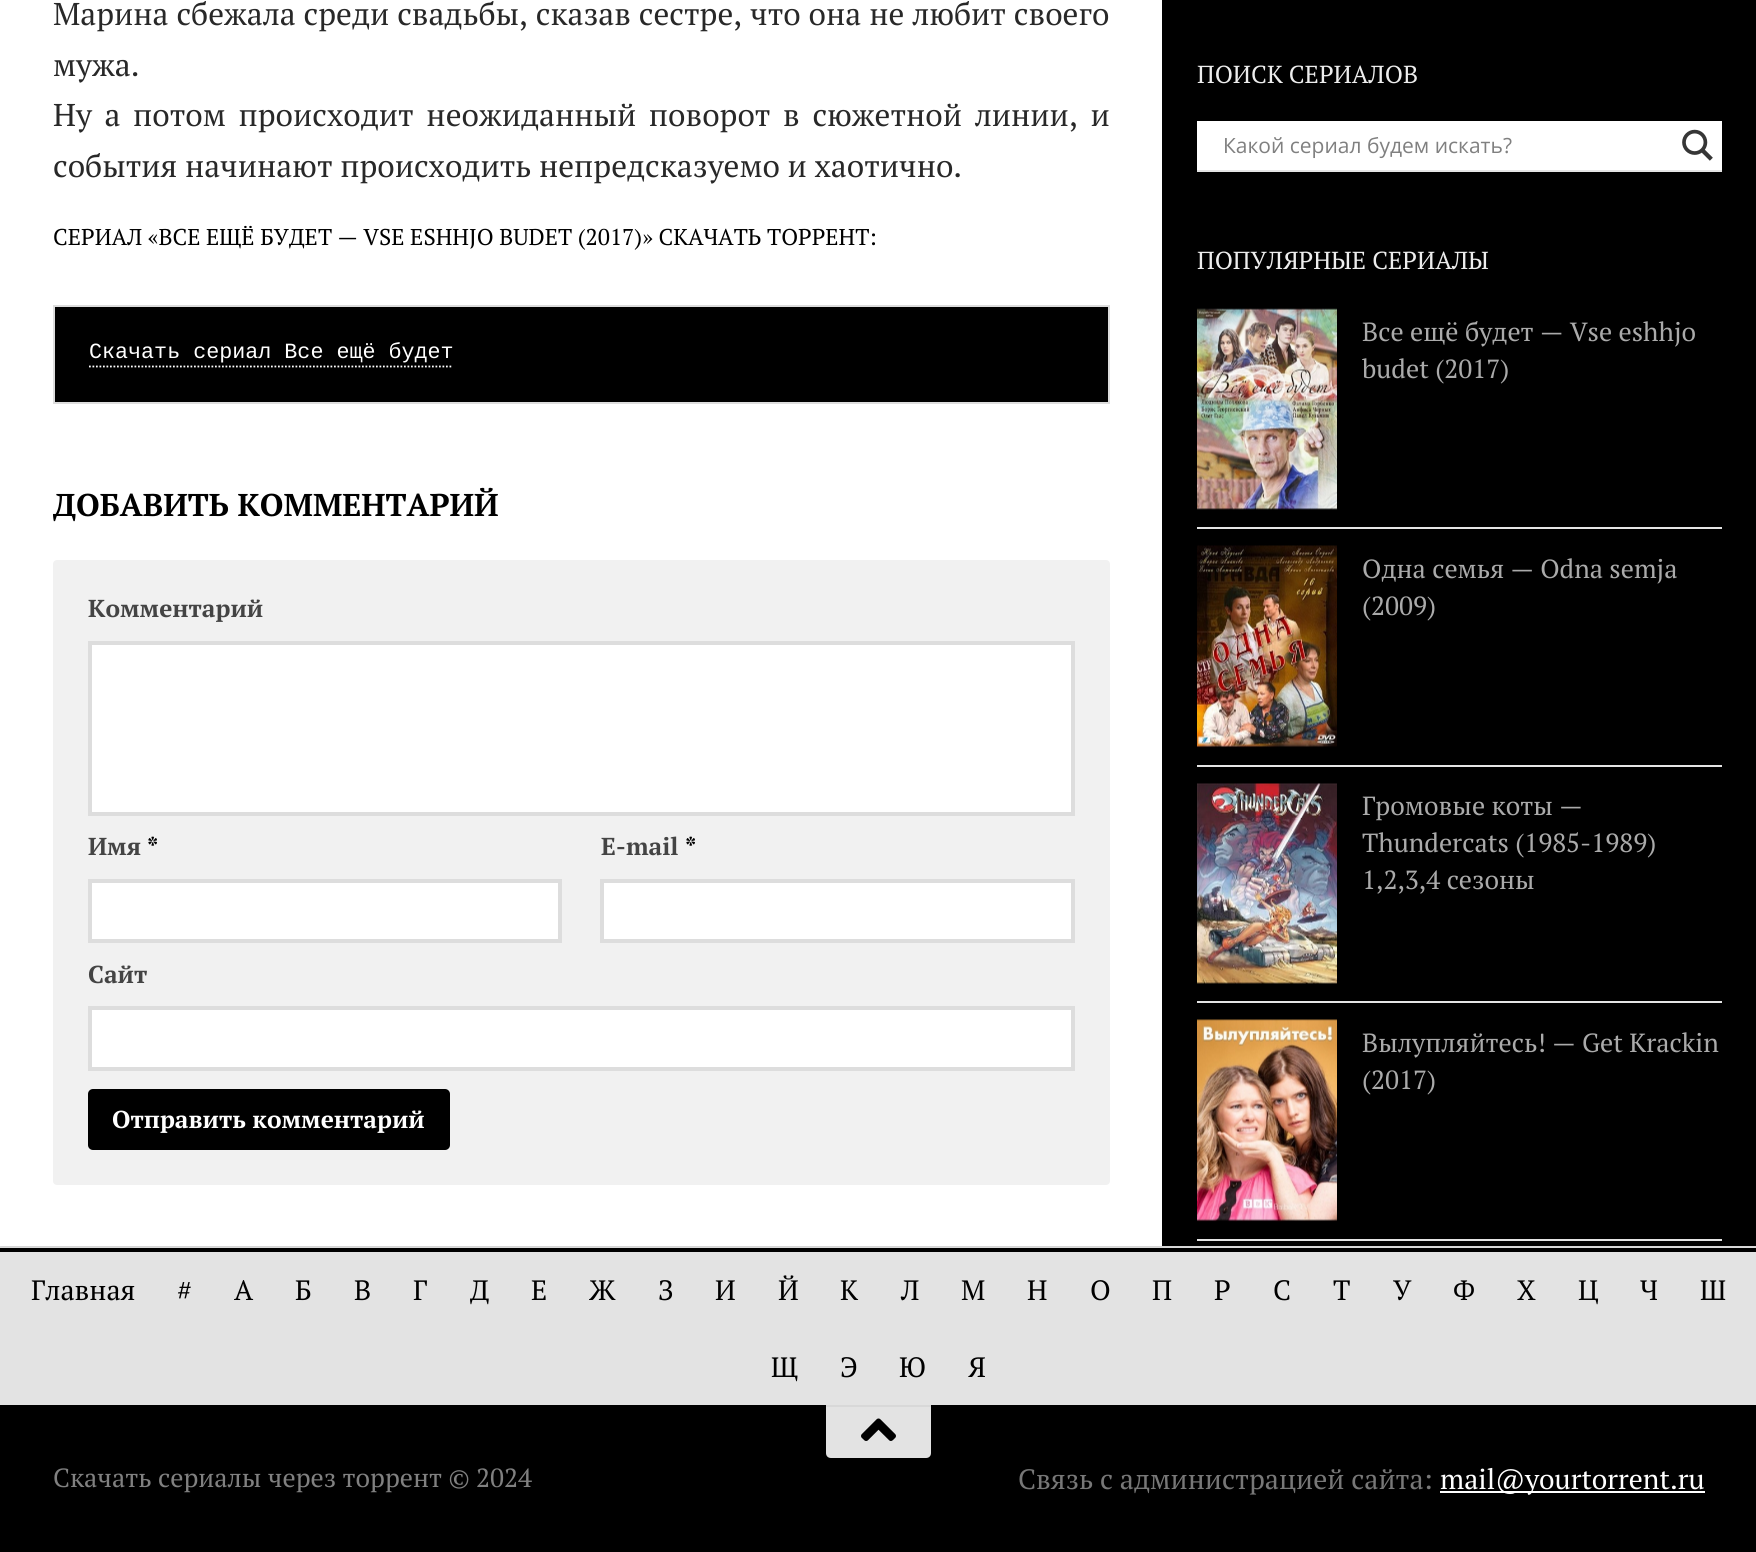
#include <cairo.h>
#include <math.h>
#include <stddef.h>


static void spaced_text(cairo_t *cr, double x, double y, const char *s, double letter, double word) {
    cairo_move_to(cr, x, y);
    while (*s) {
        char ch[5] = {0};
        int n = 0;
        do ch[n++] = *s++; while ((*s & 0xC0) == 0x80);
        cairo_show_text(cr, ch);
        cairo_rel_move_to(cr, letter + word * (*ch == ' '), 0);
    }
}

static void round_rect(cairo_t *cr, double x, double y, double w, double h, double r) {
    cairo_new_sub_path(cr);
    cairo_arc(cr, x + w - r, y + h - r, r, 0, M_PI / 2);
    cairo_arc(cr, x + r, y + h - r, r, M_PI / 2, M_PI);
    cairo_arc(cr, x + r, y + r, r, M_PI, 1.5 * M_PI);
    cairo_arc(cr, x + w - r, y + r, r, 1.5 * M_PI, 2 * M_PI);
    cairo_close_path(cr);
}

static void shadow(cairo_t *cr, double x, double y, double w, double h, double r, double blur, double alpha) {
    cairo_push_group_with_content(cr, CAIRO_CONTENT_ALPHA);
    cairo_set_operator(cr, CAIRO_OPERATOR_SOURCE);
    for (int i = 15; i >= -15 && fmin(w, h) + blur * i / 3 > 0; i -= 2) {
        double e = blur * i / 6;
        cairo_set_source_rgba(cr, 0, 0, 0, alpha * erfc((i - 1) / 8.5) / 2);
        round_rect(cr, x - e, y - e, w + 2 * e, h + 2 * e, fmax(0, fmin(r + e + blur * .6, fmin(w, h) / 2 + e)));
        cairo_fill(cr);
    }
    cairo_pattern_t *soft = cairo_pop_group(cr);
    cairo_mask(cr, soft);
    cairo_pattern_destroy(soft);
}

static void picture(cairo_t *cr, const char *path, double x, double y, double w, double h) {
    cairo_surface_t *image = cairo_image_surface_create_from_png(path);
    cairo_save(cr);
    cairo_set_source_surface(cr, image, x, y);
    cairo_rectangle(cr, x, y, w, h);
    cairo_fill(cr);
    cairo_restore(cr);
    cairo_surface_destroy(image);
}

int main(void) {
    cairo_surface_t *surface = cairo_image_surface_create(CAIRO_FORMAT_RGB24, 1756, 1552);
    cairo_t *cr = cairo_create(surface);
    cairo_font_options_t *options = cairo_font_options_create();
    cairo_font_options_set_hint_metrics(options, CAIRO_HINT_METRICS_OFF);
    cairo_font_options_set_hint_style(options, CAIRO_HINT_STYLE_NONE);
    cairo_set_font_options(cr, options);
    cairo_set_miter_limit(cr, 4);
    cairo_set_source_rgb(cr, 0.918, 0.918, 0.918);
    cairo_paint(cr);
    cairo_set_source_rgb(cr, 0, 0, 0);
    shadow(cr, 0, -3, 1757, 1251, 0, 1, 0.1);
    cairo_set_source_rgb(cr, 1, 1, 1);
    cairo_rectangle(cr, 0, 0, 1162, 1246);
    cairo_fill(cr);
    cairo_set_source_rgb(cr, 0, 0, 0);
    cairo_rectangle(cr, 1162, 0, 594, 1246);
    cairo_fill(cr);
    cairo_select_font_face(cr, "PT Serif", CAIRO_FONT_SLANT_NORMAL, CAIRO_FONT_WEIGHT_NORMAL);
    cairo_set_font_size(cr, 31.5);
    cairo_set_source_rgb(cr, 0.157, 0.157, 0.157);
    spaced_text(cr, 53, 25, "Марина сбежала среди свадьбы, сказав сестре, что она не любит своего", 0, 0.25);
    cairo_move_to(cr, 53, 76);
    cairo_show_text(cr, "мужа.");
    spaced_text(cr, 53, 126, "Ну а потом происходит неожиданный поворот в сюжетной линии, и", 0, 5);
    cairo_move_to(cr, 53, 177);
    cairo_show_text(cr, "события начинают происходить непредсказуемо и хаотично.");
    cairo_set_font_size(cr, 22.85);
    cairo_set_source_rgb(cr, 0, 0, 0);
    cairo_move_to(cr, 53, 245);
    cairo_show_text(cr, "СЕРИАЛ «ВСЕ ЕЩЁ БУДЕТ — VSE ESHHJO BUDET (2017)» СКАЧАТЬ ТОРРЕНТ:");
    cairo_rectangle(cr, 54, 306, 1055, 97);
    cairo_fill_preserve(cr);
    cairo_set_source_rgb(cr, 0.867, 0.867, 0.867);
    cairo_stroke(cr);
    cairo_select_font_face(cr, "Liberation Mono", CAIRO_FONT_SLANT_NORMAL, CAIRO_FONT_WEIGHT_NORMAL);
    cairo_set_font_size(cr, 21.7);
    cairo_set_source_rgb(cr, 1, 1, 1);
    cairo_move_to(cr, 89, 358);
    cairo_show_text(cr, "Скачать сериал Все ещё будет");
    cairo_new_path(cr);
    cairo_move_to(cr, 89, 366.5);
    cairo_line_to(cr, 453, 366.5);
    cairo_set_line_width(cr, 1.8);
    cairo_set_dash(cr, (double[]){1.75, 1.75}, 2, 0);
    cairo_stroke(cr);
    cairo_select_font_face(cr, "PT Serif", CAIRO_FONT_SLANT_NORMAL, CAIRO_FONT_WEIGHT_BOLD);
    cairo_set_font_size(cr, 31.5);
    cairo_set_source_rgb(cr, 0, 0, 0);
    cairo_move_to(cr, 53, 516);
    cairo_show_text(cr, "ДОБАВИТЬ КОММЕНТАРИЙ");
    cairo_set_source_rgb(cr, 0.945, 0.945, 0.945);
    round_rect(cr, 53, 560, 1057, 625, 4);
    cairo_fill(cr);
    cairo_set_font_size(cr, 24.5);
    cairo_set_source_rgb(cr, 0.267, 0.267, 0.267);
    cairo_move_to(cr, 88, 617);
    cairo_show_text(cr, "Комментарий");
    cairo_set_source_rgb(cr, 1, 1, 1);
    cairo_rectangle(cr, 90, 643, 983, 171);
    cairo_fill_preserve(cr);
    cairo_set_source_rgb(cr, 0.867, 0.867, 0.867);
    cairo_set_line_width(cr, 4);
    cairo_set_dash(cr, NULL, 0, 0);
    cairo_stroke(cr);
    cairo_set_source_rgb(cr, 0.267, 0.267, 0.267);
    cairo_move_to(cr, 88, 855);
    cairo_show_text(cr, "Имя");
    cairo_set_source_rgb(cr, 0, 0, 0);
    cairo_move_to(cr, 147, 855);
    cairo_show_text(cr, "*");
    cairo_set_source_rgb(cr, 1, 1, 1);
    cairo_rectangle(cr, 90, 881, 470, 60);
    cairo_fill_preserve(cr);
    cairo_set_source_rgb(cr, 0.867, 0.867, 0.867);
    cairo_stroke(cr);
    cairo_set_source_rgb(cr, 0.267, 0.267, 0.267);
    cairo_move_to(cr, 601, 855);
    cairo_show_text(cr, "E-mail");
    cairo_set_source_rgb(cr, 0, 0, 0);
    cairo_move_to(cr, 685, 855);
    cairo_show_text(cr, "*");
    cairo_set_source_rgb(cr, 1, 1, 1);
    cairo_rectangle(cr, 602, 881, 471, 60);
    cairo_fill_preserve(cr);
    cairo_set_source_rgb(cr, 0.867, 0.867, 0.867);
    cairo_stroke(cr);
    cairo_set_source_rgb(cr, 0.267, 0.267, 0.267);
    cairo_move_to(cr, 88, 983);
    cairo_show_text(cr, "Сайт");
    cairo_set_source_rgb(cr, 1, 1, 1);
    cairo_rectangle(cr, 90, 1008, 983, 61);
    cairo_fill_preserve(cr);
    cairo_set_source_rgb(cr, 0.867, 0.867, 0.867);
    cairo_stroke(cr);
    cairo_set_source_rgb(cr, 0, 0, 0);
    round_rect(cr, 88, 1089, 362, 61, 5);
    cairo_fill(cr);
    cairo_set_source_rgb(cr, 1, 1, 1);
    cairo_move_to(cr, 112, 1128);
    cairo_show_text(cr, "Отправить комментарий");
    cairo_select_font_face(cr, "PT Serif", CAIRO_FONT_SLANT_NORMAL, CAIRO_FONT_WEIGHT_NORMAL);
    cairo_set_font_size(cr, 24.6);
    cairo_set_source_rgb(cr, 0.929, 0.929, 0.929);
    cairo_move_to(cr, 1197, 83);
    cairo_show_text(cr, "ПОИСК СЕРИАЛОВ");
    cairo_set_source_rgb(cr, 0.894, 0.894, 0.894);
    cairo_rectangle(cr, 1197, 170, 525, 2);
    cairo_fill(cr);
    cairo_set_source_rgb(cr, 1, 1, 1);
    cairo_rectangle(cr, 1197, 121, 525, 49);
    cairo_fill(cr);
    cairo_select_font_face(cr, "Open Sans", CAIRO_FONT_SLANT_NORMAL, CAIRO_FONT_WEIGHT_NORMAL);
    cairo_set_font_size(cr, 21);
    cairo_set_source_rgb(cr, 0.502, 0.502, 0.502);
    cairo_move_to(cr, 1223, 153);
    cairo_show_text(cr, "Какой сериал будем искать?");
    picture(cr, "img1.png", 1682, 129, 31, 32);
    cairo_select_font_face(cr, "PT Serif", CAIRO_FONT_SLANT_NORMAL, CAIRO_FONT_WEIGHT_NORMAL);
    cairo_set_font_size(cr, 24.6);
    cairo_set_source_rgb(cr, 0.929, 0.929, 0.929);
    cairo_move_to(cr, 1197, 269);
    cairo_show_text(cr, "ПОПУЛЯРНЫЕ СЕРИАЛЫ");
    cairo_set_source_rgb(cr, 0.894, 0.894, 0.894);
    cairo_rectangle(cr, 1197, 527, 525, 2);
    cairo_fill(cr);
    picture(cr, "img2.png", 1197, 308, 140, 202);
    cairo_set_font_size(cr, 26.25);
    cairo_set_source_rgb(cr, 0.667, 0.667, 0.667);
    cairo_move_to(cr, 1362, 341);
    cairo_show_text(cr, "Все ещё будет — Vse eshhjo");
    cairo_move_to(cr, 1362, 378);
    cairo_show_text(cr, "budet (2017)");
    cairo_set_source_rgb(cr, 0.894, 0.894, 0.894);
    cairo_rectangle(cr, 1197, 765, 525, 2);
    cairo_fill(cr);
    picture(cr, "img3.png", 1197, 545, 140, 203);
    cairo_set_source_rgb(cr, 0.667, 0.667, 0.667);
    cairo_move_to(cr, 1362, 578);
    cairo_show_text(cr, "Одна семья — Odna semja");
    cairo_move_to(cr, 1362, 615);
    cairo_show_text(cr, "(2009)");
    cairo_set_source_rgb(cr, 0.894, 0.894, 0.894);
    cairo_rectangle(cr, 1197, 1001, 525, 2);
    cairo_fill(cr);
    picture(cr, "img4.png", 1197, 783, 140, 201);
    cairo_set_source_rgb(cr, 0.667, 0.667, 0.667);
    cairo_move_to(cr, 1362, 815);
    cairo_show_text(cr, "Громовые коты —");
    cairo_move_to(cr, 1362, 852);
    cairo_show_text(cr, "Thundercats (1985-1989)");
    cairo_move_to(cr, 1362, 889);
    cairo_show_text(cr, "1,2,3,4 сезоны");
    cairo_set_source_rgb(cr, 0.894, 0.894, 0.894);
    cairo_rectangle(cr, 1197, 1239, 525, 2);
    cairo_fill(cr);
    picture(cr, "img5.png", 1197, 1019, 140, 203);
    cairo_set_source_rgb(cr, 0.667, 0.667, 0.667);
    cairo_move_to(cr, 1362, 1052);
    cairo_show_text(cr, "Вылупляйтесь! — Get Krackin");
    cairo_move_to(cr, 1362, 1089);
    cairo_show_text(cr, "(2017)");
    cairo_set_source_rgb(cr, 0.89, 0.89, 0.89);
    cairo_rectangle(cr, 0, 1252, 1756, 153);
    cairo_fill(cr);
    cairo_set_source_rgb(cr, 0, 0, 0);
    cairo_rectangle(cr, 0, 1248, 1756, 4);
    cairo_fill(cr);
    cairo_set_font_size(cr, 28);
    cairo_move_to(cr, 31, 1300);
    cairo_show_text(cr, "Главная");
    cairo_move_to(cr, 177, 1300);
    cairo_show_text(cr, "#");
    cairo_move_to(cr, 234, 1300);
    cairo_show_text(cr, "А");
    cairo_move_to(cr, 295, 1300);
    cairo_show_text(cr, "Б");
    cairo_move_to(cr, 354, 1300);
    cairo_show_text(cr, "В");
    cairo_move_to(cr, 413, 1300);
    cairo_show_text(cr, "Г");
    cairo_move_to(cr, 470, 1300);
    cairo_show_text(cr, "Д");
    cairo_move_to(cr, 531, 1300);
    cairo_show_text(cr, "Е");
    cairo_move_to(cr, 589, 1300);
    cairo_show_text(cr, "Ж");
    cairo_move_to(cr, 658, 1300);
    cairo_show_text(cr, "З");
    cairo_move_to(cr, 715, 1300);
    cairo_show_text(cr, "И");
    cairo_move_to(cr, 778, 1300);
    cairo_show_text(cr, "Й");
    cairo_move_to(cr, 840, 1300);
    cairo_show_text(cr, "К");
    cairo_move_to(cr, 901, 1300);
    cairo_show_text(cr, "Л");
    cairo_move_to(cr, 961, 1300);
    cairo_show_text(cr, "М");
    cairo_move_to(cr, 1027, 1300);
    cairo_show_text(cr, "Н");
    cairo_move_to(cr, 1090, 1300);
    cairo_show_text(cr, "О");
    cairo_move_to(cr, 1152, 1300);
    cairo_show_text(cr, "П");
    cairo_move_to(cr, 1214, 1300);
    cairo_show_text(cr, "Р");
    cairo_move_to(cr, 1273, 1300);
    cairo_show_text(cr, "С");
    cairo_move_to(cr, 1333, 1300);
    cairo_show_text(cr, "Т");
    cairo_move_to(cr, 1393, 1300);
    cairo_show_text(cr, "У");
    cairo_move_to(cr, 1453, 1300);
    cairo_show_text(cr, "Ф");
    cairo_move_to(cr, 1517, 1300);
    cairo_show_text(cr, "Х");
    cairo_move_to(cr, 1578, 1300);
    cairo_show_text(cr, "Ц");
    cairo_move_to(cr, 1640, 1300);
    cairo_show_text(cr, "Ч");
    cairo_move_to(cr, 1700, 1300);
    cairo_show_text(cr, "Ш");
    cairo_move_to(cr, 771, 1377);
    cairo_show_text(cr, "Щ");
    cairo_move_to(cr, 840, 1377);
    cairo_show_text(cr, "Э");
    cairo_move_to(cr, 899, 1377);
    cairo_show_text(cr, "Ю");
    cairo_move_to(cr, 968, 1377);
    cairo_show_text(cr, "Я");
    cairo_rectangle(cr, 0, 1405, 1756, 147);
    cairo_fill(cr);
    cairo_set_source_rgb(cr, 0.89, 0.89, 0.89);
    cairo_new_path(cr);
    cairo_move_to(cr, 826, 1405);
    cairo_line_to(cr, 931, 1405);
    cairo_line_to(cr, 931, 1453);
    cairo_curve_to(cr, 931, 1456, 929, 1458, 926, 1458);
    cairo_line_to(cr, 831, 1458);
    cairo_curve_to(cr, 828, 1458, 826, 1456, 826, 1453);
    cairo_close_path(cr);
    cairo_fill(cr);
    cairo_set_source_rgb(cr, 0.847, 0.847, 0.847);
    cairo_rectangle(cr, 826, 1405, 105, 2);
    cairo_fill(cr);
    picture(cr, "img6.png", 861, 1418, 35, 23);
    cairo_set_font_size(cr, 26.25);
    cairo_set_source_rgb(cr, 0.502, 0.502, 0.502);
    cairo_move_to(cr, 53, 1487);
    cairo_show_text(cr, "Скачать сериалы через торрент © 2024");
    cairo_set_font_size(cr, 28);
    cairo_set_source_rgb(cr, 0.467, 0.467, 0.467);
    cairo_move_to(cr, 1018, 1489);
    cairo_show_text(cr, "Связь с администрацией сайта:");
    cairo_set_source_rgb(cr, 1, 1, 1);
    cairo_rectangle(cr, 1440, 1491, 265, 2);
    cairo_fill(cr);
    cairo_move_to(cr, 1440, 1489);
    cairo_show_text(cr, "mail@yourtorrent.ru");
    cairo_surface_write_to_png(surface, "page.png");
    cairo_font_options_destroy(options);
    cairo_destroy(cr);
    cairo_surface_destroy(surface);
    return 0;
}
